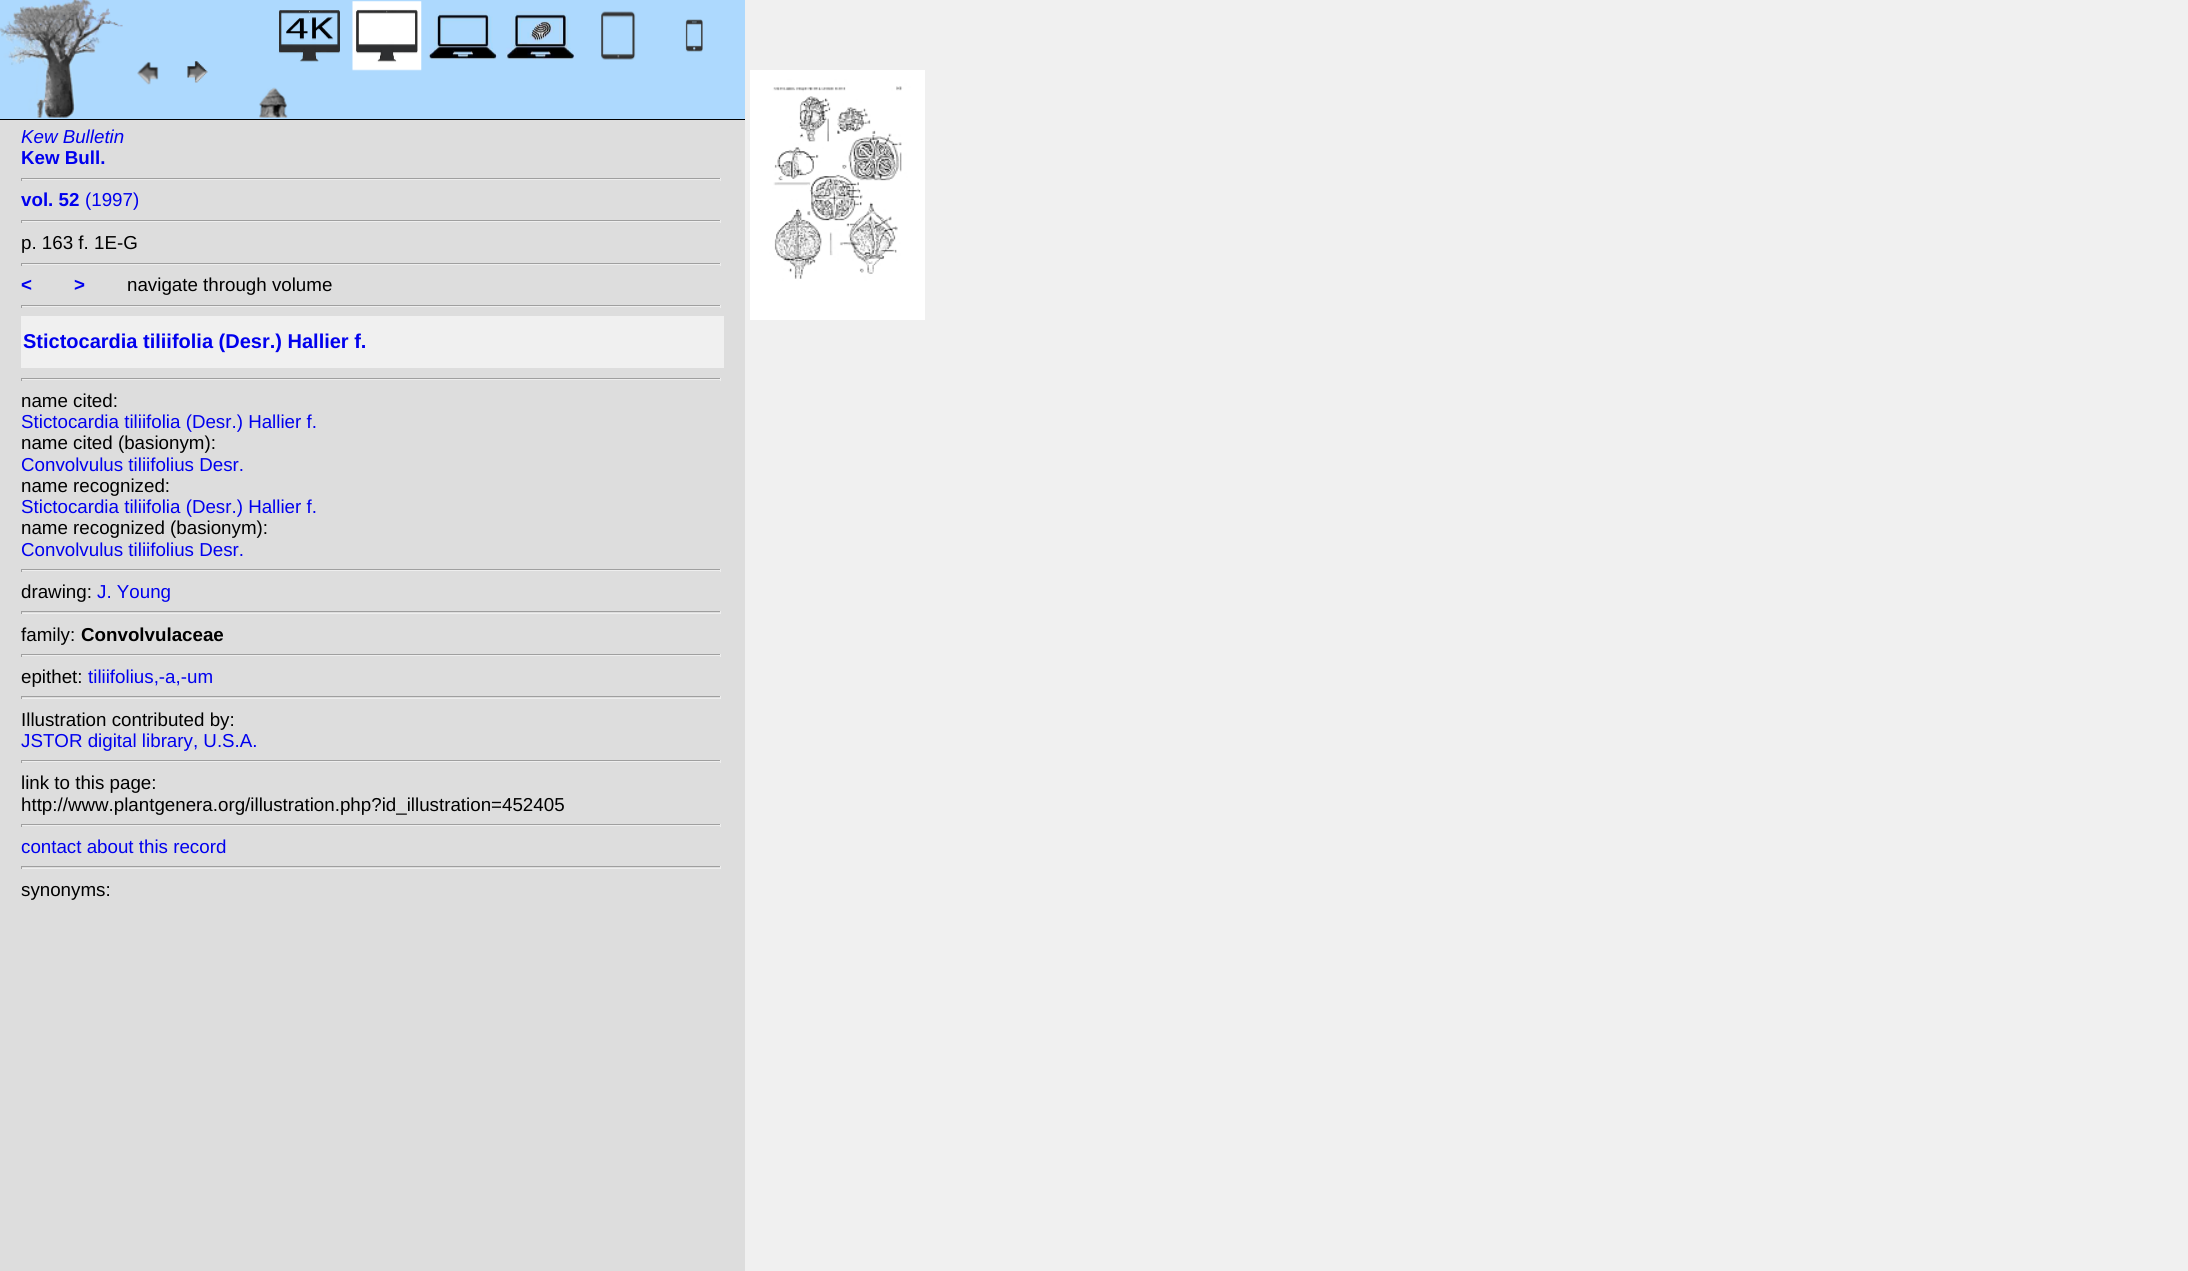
#include <cairo.h>
#include <math.h>
#include <stddef.h>


static void picture(cairo_t *cr, const char *path, double x, double y, double w, double h) {
    cairo_surface_t *image = cairo_image_surface_create_from_png(path);
    cairo_save(cr);
    cairo_set_source_surface(cr, image, x, y);
    cairo_rectangle(cr, x, y, w, h);
    cairo_fill(cr);
    cairo_restore(cr);
    cairo_surface_destroy(image);
}

int main(void) {
    cairo_surface_t *surface = cairo_image_surface_create(CAIRO_FORMAT_RGB24, 2188, 1271);
    cairo_t *cr = cairo_create(surface);
    cairo_font_options_t *options = cairo_font_options_create();
    cairo_font_options_set_hint_metrics(options, CAIRO_HINT_METRICS_OFF);
    cairo_font_options_set_hint_style(options, CAIRO_HINT_STYLE_NONE);
    cairo_set_font_options(cr, options);
    cairo_set_miter_limit(cr, 4);
    cairo_set_source_rgb(cr, 0.941, 0.941, 0.941);
    cairo_paint(cr);
    cairo_set_source_rgb(cr, 0.867, 0.867, 0.867);
    cairo_rectangle(cr, 0, 120, 745, 1151);
    cairo_fill(cr);
    cairo_set_source_rgb(cr, 0.678, 0.851, 0.996);
    cairo_rectangle(cr, 0, 0, 745, 119);
    cairo_fill(cr);
    cairo_set_source_rgb(cr, 0, 0, 0);
    cairo_rectangle(cr, 0, 119, 745, 1);
    cairo_fill(cr);
    picture(cr, "img1.png", 0, 0, 123, 118);
    picture(cr, "img2.png", 137, 61, 22, 24);
    picture(cr, "img3.png", 187, 61, 21, 22);
    picture(cr, "img4.png", 277, 10, 63, 52);
    picture(cr, "img5.png", 352, 1, 70, 70);
    picture(cr, "img6.png", 428, 11, 70, 49);
    picture(cr, "img7.png", 506, 11, 69, 49);
    picture(cr, "img8.png", 601, 11, 35, 49);
    picture(cr, "img9.png", 685, 19, 18, 33);
    picture(cr, "img10.png", 259, 87, 29, 31);
    cairo_select_font_face(cr, "Liberation Sans", CAIRO_FONT_SLANT_ITALIC, CAIRO_FONT_WEIGHT_NORMAL);
    cairo_set_font_size(cr, 18.75);
    cairo_set_source_rgb(cr, 0, 0, 0.933);
    cairo_move_to(cr, 21, 143);
    cairo_show_text(cr, "Kew Bulletin");
    cairo_select_font_face(cr, "Liberation Sans", CAIRO_FONT_SLANT_NORMAL, CAIRO_FONT_WEIGHT_BOLD);
    cairo_move_to(cr, 21, 164);
    cairo_show_text(cr, "Kew Bull.");
    cairo_set_source_rgb(cr, 0.624, 0.624, 0.624);
    cairo_rectangle(cr, 21, 178, 700, 1);
    cairo_fill(cr);
    cairo_set_source_rgb(cr, 0.933, 0.933, 0.933);
    cairo_rectangle(cr, 720, 178, 1, 3);
    cairo_fill(cr);
    cairo_rectangle(cr, 21, 179, 700, 1);
    cairo_fill(cr);
    cairo_set_source_rgb(cr, 0.624, 0.624, 0.624);
    cairo_rectangle(cr, 21, 178, 1, 3);
    cairo_fill(cr);
    cairo_set_source_rgb(cr, 0, 0, 0.933);
    cairo_move_to(cr, 21, 206);
    cairo_show_text(cr, "vol. 52");
    cairo_select_font_face(cr, "Liberation Sans", CAIRO_FONT_SLANT_NORMAL, CAIRO_FONT_WEIGHT_NORMAL);
    cairo_move_to(cr, 85, 206);
    cairo_show_text(cr, "(1997)");
    cairo_set_source_rgb(cr, 0.624, 0.624, 0.624);
    cairo_rectangle(cr, 21, 220, 700, 1);
    cairo_fill(cr);
    cairo_set_source_rgb(cr, 0.933, 0.933, 0.933);
    cairo_rectangle(cr, 720, 220, 1, 3);
    cairo_fill(cr);
    cairo_rectangle(cr, 21, 221, 700, 1);
    cairo_fill(cr);
    cairo_set_source_rgb(cr, 0.624, 0.624, 0.624);
    cairo_rectangle(cr, 21, 220, 1, 3);
    cairo_fill(cr);
    cairo_set_source_rgb(cr, 0, 0, 0);
    cairo_move_to(cr, 21, 249);
    cairo_show_text(cr, "p. 163 f. 1E-G");
    cairo_set_source_rgb(cr, 0.624, 0.624, 0.624);
    cairo_rectangle(cr, 21, 263, 700, 1);
    cairo_fill(cr);
    cairo_set_source_rgb(cr, 0.933, 0.933, 0.933);
    cairo_rectangle(cr, 720, 263, 1, 3);
    cairo_fill(cr);
    cairo_rectangle(cr, 21, 264, 700, 1);
    cairo_fill(cr);
    cairo_set_source_rgb(cr, 0.624, 0.624, 0.624);
    cairo_rectangle(cr, 21, 263, 1, 3);
    cairo_fill(cr);
    cairo_select_font_face(cr, "Liberation Sans", CAIRO_FONT_SLANT_NORMAL, CAIRO_FONT_WEIGHT_BOLD);
    cairo_set_source_rgb(cr, 0, 0, 0.933);
    cairo_move_to(cr, 21, 291);
    cairo_show_text(cr, "<");
    cairo_move_to(cr, 74, 291);
    cairo_show_text(cr, ">");
    cairo_select_font_face(cr, "Liberation Sans", CAIRO_FONT_SLANT_NORMAL, CAIRO_FONT_WEIGHT_NORMAL);
    cairo_set_source_rgb(cr, 0, 0, 0);
    cairo_move_to(cr, 127, 291);
    cairo_show_text(cr, "navigate through volume");
    cairo_set_source_rgb(cr, 0.624, 0.624, 0.624);
    cairo_rectangle(cr, 21, 305, 700, 1);
    cairo_fill(cr);
    cairo_set_source_rgb(cr, 0.933, 0.933, 0.933);
    cairo_rectangle(cr, 720, 305, 1, 3);
    cairo_fill(cr);
    cairo_rectangle(cr, 21, 306, 700, 1);
    cairo_fill(cr);
    cairo_set_source_rgb(cr, 0.624, 0.624, 0.624);
    cairo_rectangle(cr, 21, 305, 1, 3);
    cairo_fill(cr);
    cairo_set_source_rgb(cr, 0.941, 0.941, 0.941);
    cairo_rectangle(cr, 21, 316, 703, 52);
    cairo_fill(cr);
    cairo_select_font_face(cr, "Liberation Sans", CAIRO_FONT_SLANT_NORMAL, CAIRO_FONT_WEIGHT_BOLD);
    cairo_set_font_size(cr, 20);
    cairo_set_source_rgb(cr, 0, 0, 0.933);
    cairo_move_to(cr, 23, 348);
    cairo_show_text(cr, "Stictocardia tiliifolia (Desr.) Hallier f.");
    cairo_set_source_rgb(cr, 0.624, 0.624, 0.624);
    cairo_rectangle(cr, 21, 378, 700, 1);
    cairo_fill(cr);
    cairo_set_source_rgb(cr, 0.933, 0.933, 0.933);
    cairo_rectangle(cr, 720, 378, 1, 3);
    cairo_fill(cr);
    cairo_rectangle(cr, 21, 379, 700, 1);
    cairo_fill(cr);
    cairo_set_source_rgb(cr, 0.624, 0.624, 0.624);
    cairo_rectangle(cr, 21, 378, 1, 3);
    cairo_fill(cr);
    cairo_select_font_face(cr, "Liberation Sans", CAIRO_FONT_SLANT_NORMAL, CAIRO_FONT_WEIGHT_NORMAL);
    cairo_set_font_size(cr, 18.75);
    cairo_set_source_rgb(cr, 0, 0, 0);
    cairo_move_to(cr, 21, 407);
    cairo_show_text(cr, "name cited:");
    cairo_set_source_rgb(cr, 0, 0, 0.933);
    cairo_move_to(cr, 21, 428);
    cairo_show_text(cr, "Stictocardia tiliifolia (Desr.) Hallier f.");
    cairo_set_source_rgb(cr, 0, 0, 0);
    cairo_move_to(cr, 21, 449);
    cairo_show_text(cr, "name cited (basionym):");
    cairo_set_source_rgb(cr, 0, 0, 0.933);
    cairo_move_to(cr, 21, 471);
    cairo_show_text(cr, "Convolvulus tiliifolius Desr.");
    cairo_set_source_rgb(cr, 0, 0, 0);
    cairo_move_to(cr, 21, 492);
    cairo_show_text(cr, "name recognized:");
    cairo_set_source_rgb(cr, 0, 0, 0.933);
    cairo_move_to(cr, 21, 513);
    cairo_show_text(cr, "Stictocardia tiliifolia (Desr.) Hallier f.");
    cairo_set_source_rgb(cr, 0, 0, 0);
    cairo_move_to(cr, 21, 534);
    cairo_show_text(cr, "name recognized (basionym):");
    cairo_set_source_rgb(cr, 0, 0, 0.933);
    cairo_move_to(cr, 21, 556);
    cairo_show_text(cr, "Convolvulus tiliifolius Desr.");
    cairo_set_source_rgb(cr, 0.624, 0.624, 0.624);
    cairo_rectangle(cr, 21, 569, 700, 1);
    cairo_fill(cr);
    cairo_set_source_rgb(cr, 0.933, 0.933, 0.933);
    cairo_rectangle(cr, 720, 569, 1, 3);
    cairo_fill(cr);
    cairo_rectangle(cr, 21, 570, 700, 1);
    cairo_fill(cr);
    cairo_set_source_rgb(cr, 0.624, 0.624, 0.624);
    cairo_rectangle(cr, 21, 569, 1, 3);
    cairo_fill(cr);
    cairo_set_source_rgb(cr, 0, 0, 0);
    cairo_move_to(cr, 21, 598);
    cairo_show_text(cr, "drawing:");
    cairo_set_source_rgb(cr, 0, 0, 0.933);
    cairo_move_to(cr, 97, 598);
    cairo_show_text(cr, "J. Young");
    cairo_set_source_rgb(cr, 0.624, 0.624, 0.624);
    cairo_rectangle(cr, 21, 611, 700, 1);
    cairo_fill(cr);
    cairo_set_source_rgb(cr, 0.933, 0.933, 0.933);
    cairo_rectangle(cr, 720, 611, 1, 3);
    cairo_fill(cr);
    cairo_rectangle(cr, 21, 613, 700, 1);
    cairo_fill(cr);
    cairo_set_source_rgb(cr, 0.624, 0.624, 0.624);
    cairo_rectangle(cr, 21, 611, 1, 3);
    cairo_fill(cr);
    cairo_set_source_rgb(cr, 0, 0, 0);
    cairo_move_to(cr, 21, 641);
    cairo_show_text(cr, "family:");
    cairo_select_font_face(cr, "Liberation Sans", CAIRO_FONT_SLANT_NORMAL, CAIRO_FONT_WEIGHT_BOLD);
    cairo_move_to(cr, 81, 641);
    cairo_show_text(cr, "Convolvulaceae");
    cairo_set_source_rgb(cr, 0.624, 0.624, 0.624);
    cairo_rectangle(cr, 21, 654, 700, 1);
    cairo_fill(cr);
    cairo_set_source_rgb(cr, 0.933, 0.933, 0.933);
    cairo_rectangle(cr, 720, 654, 1, 3);
    cairo_fill(cr);
    cairo_rectangle(cr, 21, 655, 700, 1);
    cairo_fill(cr);
    cairo_set_source_rgb(cr, 0.624, 0.624, 0.624);
    cairo_rectangle(cr, 21, 654, 1, 3);
    cairo_fill(cr);
    cairo_select_font_face(cr, "Liberation Sans", CAIRO_FONT_SLANT_NORMAL, CAIRO_FONT_WEIGHT_NORMAL);
    cairo_set_source_rgb(cr, 0, 0, 0);
    cairo_move_to(cr, 21, 683);
    cairo_show_text(cr, "epithet:");
    cairo_set_source_rgb(cr, 0, 0, 0.933);
    cairo_move_to(cr, 88, 683);
    cairo_show_text(cr, "tiliifolius,-a,-um");
    cairo_set_source_rgb(cr, 0.624, 0.624, 0.624);
    cairo_rectangle(cr, 21, 696, 700, 1);
    cairo_fill(cr);
    cairo_set_source_rgb(cr, 0.933, 0.933, 0.933);
    cairo_rectangle(cr, 720, 696, 1, 3);
    cairo_fill(cr);
    cairo_rectangle(cr, 21, 698, 700, 1);
    cairo_fill(cr);
    cairo_set_source_rgb(cr, 0.624, 0.624, 0.624);
    cairo_rectangle(cr, 21, 696, 1, 3);
    cairo_fill(cr);
    cairo_set_source_rgb(cr, 0, 0, 0);
    cairo_move_to(cr, 21, 726);
    cairo_show_text(cr, "Illustration contributed by:");
    cairo_set_source_rgb(cr, 0, 0, 0.933);
    cairo_move_to(cr, 21, 747);
    cairo_show_text(cr, "JSTOR digital library, U.S.A.");
    cairo_set_source_rgb(cr, 0.624, 0.624, 0.624);
    cairo_rectangle(cr, 21, 760, 700, 1);
    cairo_fill(cr);
    cairo_set_source_rgb(cr, 0.933, 0.933, 0.933);
    cairo_rectangle(cr, 720, 760, 1, 3);
    cairo_fill(cr);
    cairo_rectangle(cr, 21, 761, 700, 1);
    cairo_fill(cr);
    cairo_set_source_rgb(cr, 0.624, 0.624, 0.624);
    cairo_rectangle(cr, 21, 760, 1, 3);
    cairo_fill(cr);
    cairo_set_source_rgb(cr, 0, 0, 0);
    cairo_move_to(cr, 21, 789);
    cairo_show_text(cr, "link to this page:");
    cairo_move_to(cr, 21, 811);
    cairo_show_text(cr, "http://www.plantgenera.org/illustration.php?id_illustration=452405");
    cairo_set_source_rgb(cr, 0.624, 0.624, 0.624);
    cairo_rectangle(cr, 21, 824, 700, 1);
    cairo_fill(cr);
    cairo_set_source_rgb(cr, 0.933, 0.933, 0.933);
    cairo_rectangle(cr, 720, 824, 1, 3);
    cairo_fill(cr);
    cairo_rectangle(cr, 21, 825, 700, 1);
    cairo_fill(cr);
    cairo_set_source_rgb(cr, 0.624, 0.624, 0.624);
    cairo_rectangle(cr, 21, 824, 1, 3);
    cairo_fill(cr);
    cairo_set_source_rgb(cr, 0, 0, 0.933);
    cairo_move_to(cr, 21, 853);
    cairo_show_text(cr, "contact about this record");
    cairo_set_source_rgb(cr, 0.624, 0.624, 0.624);
    cairo_rectangle(cr, 21, 866, 700, 1);
    cairo_fill(cr);
    cairo_set_source_rgb(cr, 0.933, 0.933, 0.933);
    cairo_rectangle(cr, 720, 866, 1, 3);
    cairo_fill(cr);
    cairo_rectangle(cr, 21, 868, 700, 1);
    cairo_fill(cr);
    cairo_set_source_rgb(cr, 0.624, 0.624, 0.624);
    cairo_rectangle(cr, 21, 866, 1, 3);
    cairo_fill(cr);
    cairo_set_source_rgb(cr, 0, 0, 0);
    cairo_move_to(cr, 21, 896);
    cairo_show_text(cr, "synonyms:");
    picture(cr, "img11.png", 750, 70, 175, 250);
    cairo_surface_write_to_png(surface, "page.png");
    cairo_font_options_destroy(options);
    cairo_destroy(cr);
    cairo_surface_destroy(surface);
    return 0;
}
